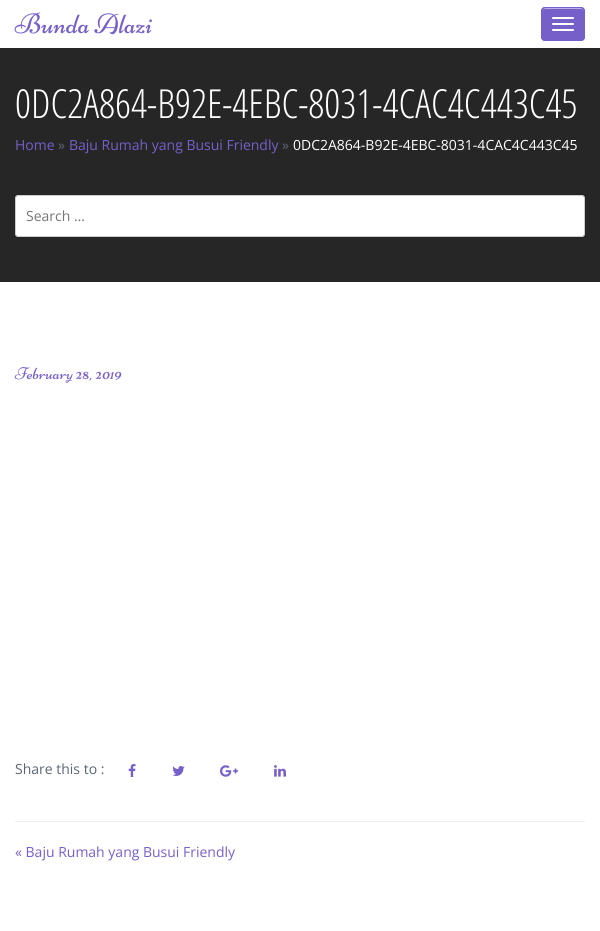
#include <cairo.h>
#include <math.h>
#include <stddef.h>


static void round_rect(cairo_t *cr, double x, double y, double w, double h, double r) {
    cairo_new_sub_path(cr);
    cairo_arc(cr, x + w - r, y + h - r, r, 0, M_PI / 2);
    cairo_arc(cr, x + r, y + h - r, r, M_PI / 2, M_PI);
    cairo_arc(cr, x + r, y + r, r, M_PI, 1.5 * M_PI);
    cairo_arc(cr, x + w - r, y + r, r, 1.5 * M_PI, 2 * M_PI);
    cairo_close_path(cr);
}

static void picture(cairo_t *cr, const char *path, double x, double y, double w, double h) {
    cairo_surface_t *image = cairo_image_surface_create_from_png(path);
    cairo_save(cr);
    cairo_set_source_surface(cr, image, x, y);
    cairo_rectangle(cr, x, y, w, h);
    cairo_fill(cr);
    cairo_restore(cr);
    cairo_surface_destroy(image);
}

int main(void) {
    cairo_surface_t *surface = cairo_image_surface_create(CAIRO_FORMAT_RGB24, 600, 931);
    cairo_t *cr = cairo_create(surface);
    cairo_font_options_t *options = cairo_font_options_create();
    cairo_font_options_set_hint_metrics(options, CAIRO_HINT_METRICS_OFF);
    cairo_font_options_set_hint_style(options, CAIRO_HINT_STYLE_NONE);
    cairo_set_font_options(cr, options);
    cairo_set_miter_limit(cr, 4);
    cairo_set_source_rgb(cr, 1, 1, 1);
    cairo_paint(cr);
    picture(cr, "img1.png", 14, 12, 138, 23);
    cairo_set_source_rgb(cr, 0.467, 0.373, 0.792);
    round_rect(cr, 541, 7, 44, 34, 4);
    cairo_fill(cr);
    cairo_set_source_rgb(cr, 0.733, 0.686, 0.898);
    cairo_new_path(cr);
    cairo_move_to(cr, 545, 9);
    cairo_line_to(cr, 581, 9);
    cairo_curve_to(cr, 583, 9, 584, 10, 584, 12);
    cairo_curve_to(cr, 584, 7, 579, 8, 575, 8);
    cairo_line_to(cr, 551, 8);
    cairo_curve_to(cr, 547, 8, 542, 7, 542, 12);
    cairo_curve_to(cr, 542, 10, 543, 9, 545, 9);
    cairo_close_path(cr);
    cairo_fill(cr);
    round_rect(cr, 541.5, 7.5, 43, 33, 3.5);
    cairo_set_source_rgb(cr, 0.467, 0.373, 0.792);
    cairo_set_line_width(cr, 1);
    cairo_stroke(cr);
    cairo_set_source_rgb(cr, 1, 1, 1);
    round_rect(cr, 552, 17, 22, 2, 1);
    cairo_fill(cr);
    round_rect(cr, 552, 23, 22, 2, 1);
    cairo_fill(cr);
    round_rect(cr, 552, 29, 22, 2, 1);
    cairo_fill(cr);
    cairo_set_source_rgb(cr, 0.149, 0.149, 0.149);
    cairo_rectangle(cr, 0, 48, 600, 234);
    cairo_fill(cr);
    cairo_select_font_face(cr, "Open Sans Condensed Light", CAIRO_FONT_SLANT_NORMAL, CAIRO_FONT_WEIGHT_NORMAL);
    cairo_set_font_size(cr, 40);
    cairo_set_source_rgb(cr, 1, 1, 1);
    cairo_move_to(cr, 15, 118);
    cairo_show_text(cr, "0DC2A864-B92E-4EBC-8031-4CAC4C443C45");
    cairo_select_font_face(cr, "Open Sans", CAIRO_FONT_SLANT_NORMAL, CAIRO_FONT_WEIGHT_NORMAL);
    cairo_set_font_size(cr, 14);
    cairo_set_source_rgb(cr, 0.467, 0.373, 0.792);
    cairo_move_to(cr, 15, 150);
    cairo_show_text(cr, "Home");
    cairo_set_source_rgb(cr, 0.353, 0.396, 0.459);
    cairo_move_to(cr, 58, 150);
    cairo_show_text(cr, "»");
    cairo_set_source_rgb(cr, 0.467, 0.373, 0.792);
    cairo_move_to(cr, 69, 150);
    cairo_show_text(cr, "Baju Rumah yang Busui Friendly");
    cairo_set_source_rgb(cr, 0.353, 0.396, 0.459);
    cairo_move_to(cr, 282, 150);
    cairo_show_text(cr, "»");
    cairo_set_source_rgb(cr, 1, 1, 1);
    cairo_move_to(cr, 293, 150);
    cairo_show_text(cr, "0DC2A864-B92E-4EBC-8031-4CAC4C443C45");
    round_rect(cr, 15.5, 195.5, 569, 41, 2.5);
    cairo_fill_preserve(cr);
    cairo_set_source_rgb(cr, 0.8, 0.8, 0.8);
    cairo_stroke(cr);
    cairo_set_source_rgb(cr, 0.459, 0.459, 0.459);
    cairo_move_to(cr, 26, 221);
    cairo_show_text(cr, "Search …");
    picture(cr, "img2.png", 14, 367, 108, 16);
    cairo_set_source_rgb(cr, 0.353, 0.396, 0.459);
    cairo_move_to(cr, 15, 774);
    cairo_show_text(cr, "Share this to :");
    picture(cr, "img3.png", 128, 764, 8, 13);
    picture(cr, "img4.png", 172, 766, 13, 10);
    picture(cr, "img5.png", 220, 765, 18, 12);
    picture(cr, "img6.png", 274, 765, 12, 12);
    cairo_set_source_rgb(cr, 0.933, 0.933, 0.933);
    cairo_rectangle(cr, 15, 821, 570, 1);
    cairo_fill(cr);
    cairo_set_source_rgb(cr, 0.467, 0.373, 0.792);
    cairo_move_to(cr, 15, 857);
    cairo_show_text(cr, "« Baju Rumah yang Busui Friendly");
    cairo_surface_write_to_png(surface, "page.png");
    cairo_font_options_destroy(options);
    cairo_destroy(cr);
    cairo_surface_destroy(surface);
    return 0;
}
